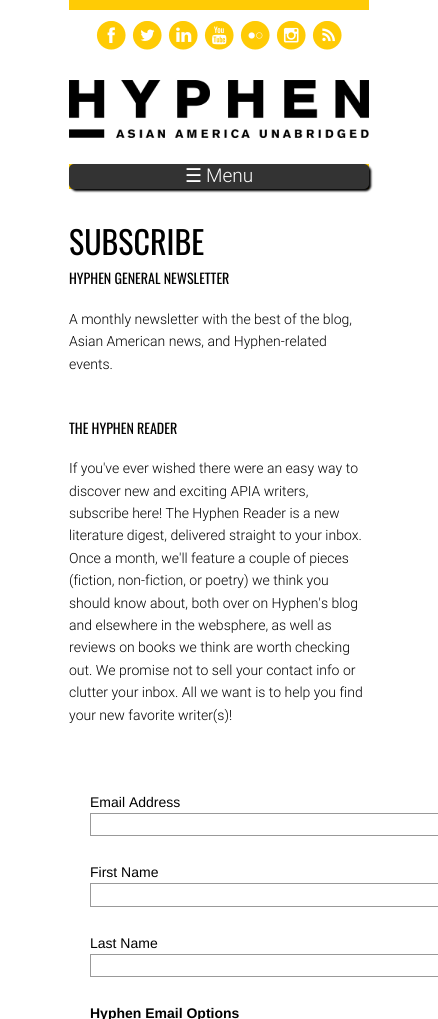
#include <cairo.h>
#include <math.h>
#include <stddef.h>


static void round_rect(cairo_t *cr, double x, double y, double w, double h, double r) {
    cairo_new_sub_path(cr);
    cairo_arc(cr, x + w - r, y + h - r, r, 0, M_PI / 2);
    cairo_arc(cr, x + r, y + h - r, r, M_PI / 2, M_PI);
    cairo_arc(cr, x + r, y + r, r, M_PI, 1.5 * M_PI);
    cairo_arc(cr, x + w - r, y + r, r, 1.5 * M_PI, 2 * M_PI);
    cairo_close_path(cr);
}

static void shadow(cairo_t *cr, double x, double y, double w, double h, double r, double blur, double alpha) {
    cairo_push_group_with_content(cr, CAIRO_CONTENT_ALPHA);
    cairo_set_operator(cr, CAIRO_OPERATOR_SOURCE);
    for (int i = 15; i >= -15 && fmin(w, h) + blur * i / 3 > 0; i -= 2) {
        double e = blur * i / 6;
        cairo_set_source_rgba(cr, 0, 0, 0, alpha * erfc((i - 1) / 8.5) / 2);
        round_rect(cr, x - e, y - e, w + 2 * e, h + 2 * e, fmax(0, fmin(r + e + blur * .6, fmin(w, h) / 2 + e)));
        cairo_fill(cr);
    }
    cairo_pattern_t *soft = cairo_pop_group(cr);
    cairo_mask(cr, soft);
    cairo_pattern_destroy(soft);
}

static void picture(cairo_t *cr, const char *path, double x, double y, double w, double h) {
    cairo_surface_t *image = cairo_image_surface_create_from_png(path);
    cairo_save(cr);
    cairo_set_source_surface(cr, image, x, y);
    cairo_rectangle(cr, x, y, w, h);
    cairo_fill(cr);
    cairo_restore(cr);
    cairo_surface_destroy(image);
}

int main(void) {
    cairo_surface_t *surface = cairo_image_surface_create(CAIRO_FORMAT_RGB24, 438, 1019);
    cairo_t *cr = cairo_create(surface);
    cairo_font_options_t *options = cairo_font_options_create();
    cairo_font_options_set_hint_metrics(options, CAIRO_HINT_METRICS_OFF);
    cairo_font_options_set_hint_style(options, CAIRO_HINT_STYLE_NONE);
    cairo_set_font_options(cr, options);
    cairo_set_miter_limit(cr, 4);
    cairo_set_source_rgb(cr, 1, 1, 1);
    cairo_paint(cr);
    cairo_set_source_rgb(cr, 1, 0.796, 0.02);
    cairo_rectangle(cr, 69, 0, 300, 10);
    cairo_fill(cr);
    picture(cr, "img1.png", 96, 21, 30, 29);
    picture(cr, "img2.png", 132, 21, 30, 29);
    picture(cr, "img3.png", 168, 21, 30, 29);
    picture(cr, "img4.png", 204, 21, 30, 29);
    picture(cr, "img5.png", 240, 21, 30, 29);
    picture(cr, "img6.png", 276, 21, 30, 29);
    picture(cr, "img7.png", 312, 21, 30, 29);
    picture(cr, "img8.png", 69, 80, 300, 58);
    cairo_rectangle(cr, 69, 164, 300, 25);
    cairo_fill(cr);
    cairo_set_source_rgb(cr, 0, 0, 0);
    shadow(cr, 71, 166, 300, 25, 5, 1, 1);
    cairo_set_source_rgb(cr, 0.2, 0.2, 0.2);
    round_rect(cr, 69, 164, 300, 25, 5);
    cairo_fill(cr);
    cairo_select_font_face(cr, "DejaVu Sans", CAIRO_FONT_SLANT_NORMAL, CAIRO_FONT_WEIGHT_NORMAL);
    cairo_set_font_size(cr, 19);
    cairo_set_source_rgb(cr, 1, 1, 1);
    cairo_move_to(cr, 185, 182);
    cairo_show_text(cr, "☰");
    cairo_select_font_face(cr, "Roboto Light", CAIRO_FONT_SLANT_NORMAL, CAIRO_FONT_WEIGHT_NORMAL);
    cairo_move_to(cr, 206, 182);
    cairo_show_text(cr, "Menu");
    cairo_select_font_face(cr, "Oswald", CAIRO_FONT_SLANT_NORMAL, CAIRO_FONT_WEIGHT_NORMAL);
    cairo_set_font_size(cr, 32);
    cairo_set_source_rgb(cr, 0, 0, 0);
    cairo_move_to(cr, 69, 255);
    cairo_show_text(cr, "SUBSCRIBE");
    cairo_set_font_size(cr, 14);
    cairo_move_to(cr, 69, 284);
    cairo_show_text(cr, "HYPHEN GENERAL NEWSLETTER");
    cairo_select_font_face(cr, "Roboto Light", CAIRO_FONT_SLANT_NORMAL, CAIRO_FONT_WEIGHT_NORMAL);
    cairo_move_to(cr, 69, 324);
    cairo_show_text(cr, "A monthly newsletter with the best of the blog,");
    cairo_move_to(cr, 69, 346);
    cairo_show_text(cr, "Asian American news, and Hyphen-related");
    cairo_move_to(cr, 69, 369);
    cairo_show_text(cr, "events.");
    cairo_select_font_face(cr, "Oswald", CAIRO_FONT_SLANT_NORMAL, CAIRO_FONT_WEIGHT_NORMAL);
    cairo_move_to(cr, 69, 434);
    cairo_show_text(cr, "THE HYPHEN READER");
    cairo_select_font_face(cr, "Roboto Light", CAIRO_FONT_SLANT_NORMAL, CAIRO_FONT_WEIGHT_NORMAL);
    cairo_move_to(cr, 69, 473);
    cairo_show_text(cr, "If you've ever wished there were an easy way to");
    cairo_move_to(cr, 69, 496);
    cairo_show_text(cr, "discover new and exciting APIA writers,");
    cairo_move_to(cr, 69, 518);
    cairo_show_text(cr, "subscribe here! The Hyphen Reader is a new");
    cairo_move_to(cr, 69, 540);
    cairo_show_text(cr, "literature digest, delivered straight to your inbox.");
    cairo_move_to(cr, 69, 563);
    cairo_show_text(cr, "Once a month, we'll feature a couple of pieces");
    cairo_move_to(cr, 69, 585);
    cairo_show_text(cr, "(fiction, non-fiction, or poetry) we think you");
    cairo_move_to(cr, 69, 608);
    cairo_show_text(cr, "should know about, both over on Hyphen's blog");
    cairo_move_to(cr, 69, 630);
    cairo_show_text(cr, "and elsewhere in the websphere, as well as");
    cairo_move_to(cr, 69, 652);
    cairo_show_text(cr, "reviews on books we think are worth checking");
    cairo_move_to(cr, 69, 675);
    cairo_show_text(cr, "out. We promise not to sell your contact info or");
    cairo_move_to(cr, 69, 697);
    cairo_show_text(cr, "clutter your inbox. All we want is to help you find");
    cairo_move_to(cr, 69, 720);
    cairo_show_text(cr, "your new favorite writer(s)!");
    cairo_select_font_face(cr, "Liberation Sans", CAIRO_FONT_SLANT_NORMAL, CAIRO_FONT_WEIGHT_NORMAL);
    cairo_move_to(cr, 90, 807);
    cairo_show_text(cr, "Email Address");
    cairo_rectangle(cr, 90.5, 813.5, 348, 22);
    cairo_set_source_rgb(cr, 0.6, 0.6, 0.6);
    cairo_set_line_width(cr, 1);
    cairo_stroke(cr);
    cairo_set_source_rgb(cr, 0, 0, 0);
    cairo_move_to(cr, 90, 877);
    cairo_show_text(cr, "First Name");
    cairo_rectangle(cr, 90.5, 883.5, 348, 23);
    cairo_set_source_rgb(cr, 0.6, 0.6, 0.6);
    cairo_stroke(cr);
    cairo_set_source_rgb(cr, 0, 0, 0);
    cairo_move_to(cr, 90, 948);
    cairo_show_text(cr, "Last Name");
    cairo_rectangle(cr, 90.5, 954.5, 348, 22);
    cairo_set_source_rgb(cr, 0.6, 0.6, 0.6);
    cairo_stroke(cr);
    cairo_select_font_face(cr, "Liberation Sans", CAIRO_FONT_SLANT_NORMAL, CAIRO_FONT_WEIGHT_BOLD);
    cairo_set_source_rgb(cr, 0, 0, 0);
    cairo_move_to(cr, 90, 1018);
    cairo_show_text(cr, "Hyphen Email Options");
    cairo_surface_write_to_png(surface, "page.png");
    cairo_font_options_destroy(options);
    cairo_destroy(cr);
    cairo_surface_destroy(surface);
    return 0;
}
